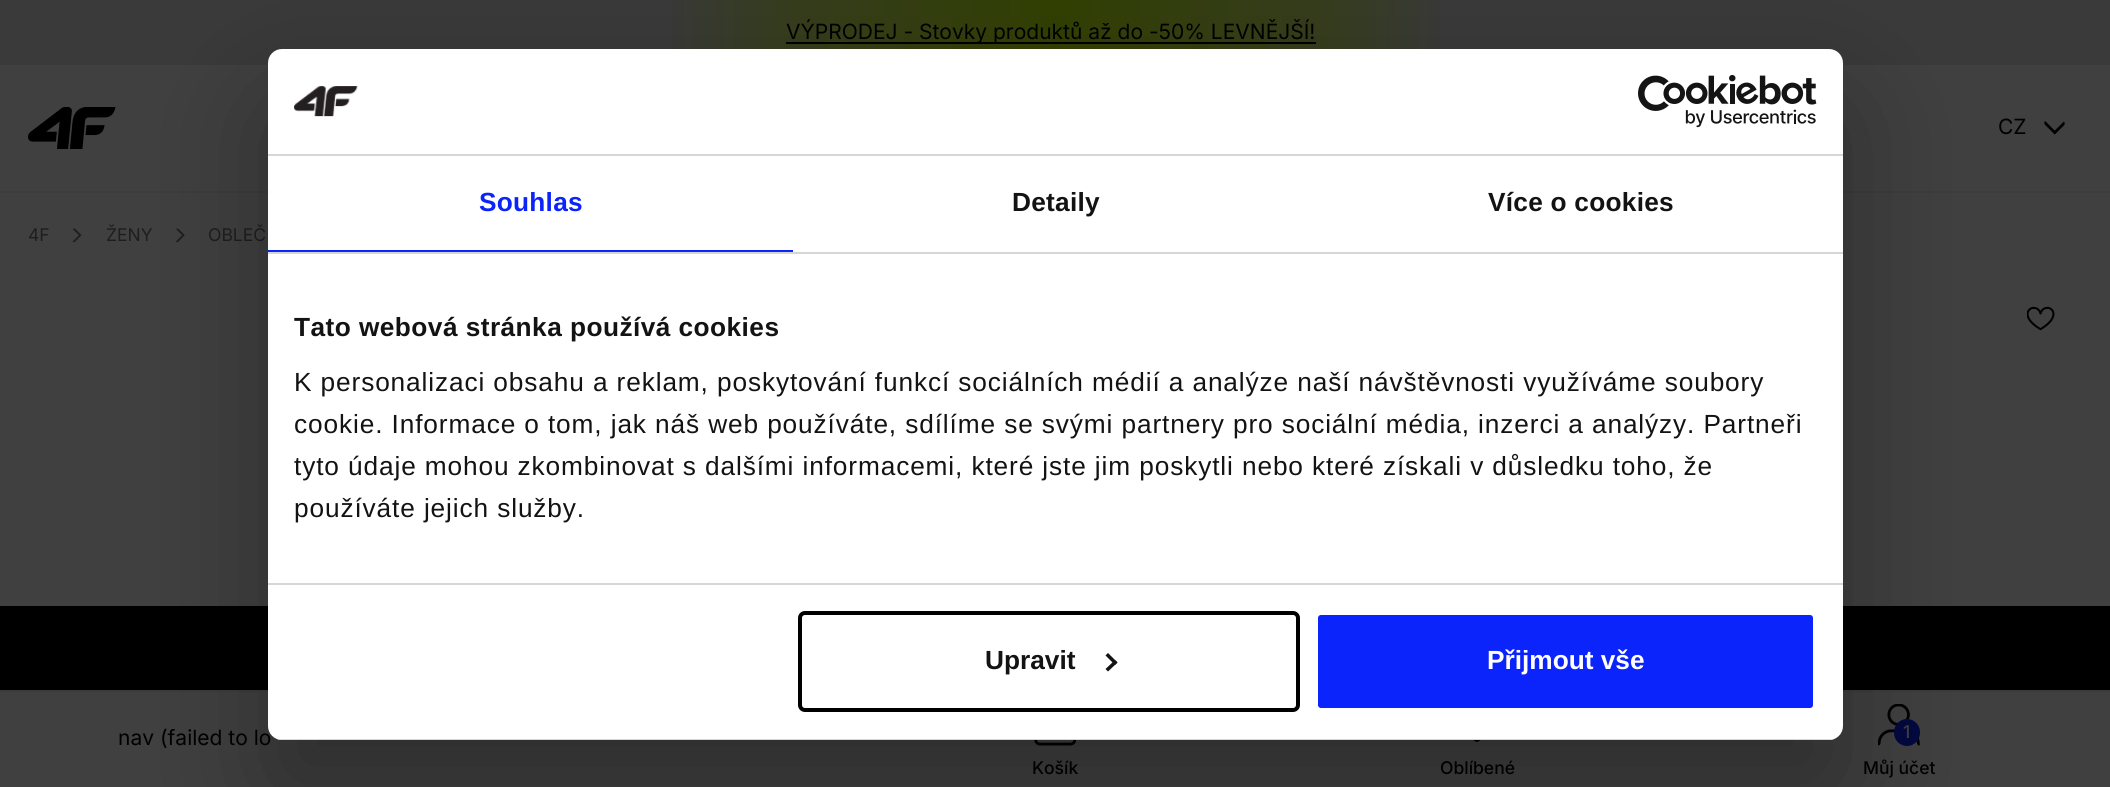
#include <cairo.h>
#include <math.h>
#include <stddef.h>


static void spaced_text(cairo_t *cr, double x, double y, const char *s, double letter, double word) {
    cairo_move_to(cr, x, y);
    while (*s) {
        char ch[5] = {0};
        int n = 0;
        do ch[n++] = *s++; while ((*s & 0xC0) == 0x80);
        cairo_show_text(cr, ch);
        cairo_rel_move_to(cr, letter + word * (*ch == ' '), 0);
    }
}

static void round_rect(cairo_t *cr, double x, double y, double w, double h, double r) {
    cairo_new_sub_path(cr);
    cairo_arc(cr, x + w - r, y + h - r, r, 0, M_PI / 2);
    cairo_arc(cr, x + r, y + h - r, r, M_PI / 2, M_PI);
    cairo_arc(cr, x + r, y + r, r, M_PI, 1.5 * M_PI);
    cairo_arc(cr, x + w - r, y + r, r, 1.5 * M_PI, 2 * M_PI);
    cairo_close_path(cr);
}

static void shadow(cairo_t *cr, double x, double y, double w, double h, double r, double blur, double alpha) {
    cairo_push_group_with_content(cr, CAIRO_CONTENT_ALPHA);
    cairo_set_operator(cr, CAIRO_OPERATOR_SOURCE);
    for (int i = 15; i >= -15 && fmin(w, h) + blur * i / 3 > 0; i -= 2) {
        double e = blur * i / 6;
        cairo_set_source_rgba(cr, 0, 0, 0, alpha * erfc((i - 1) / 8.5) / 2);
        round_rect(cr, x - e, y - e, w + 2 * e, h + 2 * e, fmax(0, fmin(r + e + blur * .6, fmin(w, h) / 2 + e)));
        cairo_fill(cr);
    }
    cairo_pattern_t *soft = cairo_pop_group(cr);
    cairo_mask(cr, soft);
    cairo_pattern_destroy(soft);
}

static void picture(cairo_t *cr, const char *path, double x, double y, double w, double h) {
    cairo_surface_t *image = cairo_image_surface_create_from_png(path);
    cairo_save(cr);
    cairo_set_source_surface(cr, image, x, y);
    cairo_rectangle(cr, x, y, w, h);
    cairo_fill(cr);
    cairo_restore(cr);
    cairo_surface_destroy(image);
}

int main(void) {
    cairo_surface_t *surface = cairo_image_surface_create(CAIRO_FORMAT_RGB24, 2110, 787);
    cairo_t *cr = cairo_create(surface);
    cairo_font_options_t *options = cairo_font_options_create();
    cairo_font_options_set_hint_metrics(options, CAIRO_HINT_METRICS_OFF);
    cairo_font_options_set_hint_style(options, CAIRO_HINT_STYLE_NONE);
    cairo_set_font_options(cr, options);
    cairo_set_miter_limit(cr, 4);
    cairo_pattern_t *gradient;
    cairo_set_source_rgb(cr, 0.251, 0.251, 0.251);
    cairo_paint(cr);
    cairo_set_source_rgb(cr, 0.227, 0.227, 0.227);
    cairo_rectangle(cr, 0, 0, 2110, 65);
    cairo_fill(cr);
    gradient = cairo_pattern_create_linear(660, 32, 1451, 32);
    cairo_pattern_add_color_stop_rgba(gradient, 0, 0.227, 0.227, 0.227, 1);
    cairo_pattern_add_color_stop_rgba(gradient, 0.15, 0.212, 0.239, 0.118, 1);
    cairo_pattern_add_color_stop_rgba(gradient, 0.5, 0.196, 0.251, 0.008, 1);
    cairo_pattern_add_color_stop_rgba(gradient, 0.85, 0.212, 0.239, 0.118, 1);
    cairo_pattern_add_color_stop_rgba(gradient, 1, 0.227, 0.227, 0.227, 1);
    cairo_set_source(cr, gradient);
    cairo_pattern_destroy(gradient);
    cairo_rectangle(cr, 671, 0, 769, 49);
    cairo_fill(cr);
    cairo_set_source_rgb(cr, 0, 0, 0);
    cairo_rectangle(cr, 786, 42, 530, 2);
    cairo_fill(cr);
    cairo_select_font_face(cr, "Inter", CAIRO_FONT_SLANT_NORMAL, CAIRO_FONT_WEIGHT_NORMAL);
    cairo_set_font_size(cr, 21);
    cairo_move_to(cr, 786, 39);
    cairo_show_text(cr, "VÝPRODEJ - Stovky produktů až do -50% LEVNĚJŠÍ!");
    cairo_set_source_rgb(cr, 0.235, 0.235, 0.235);
    cairo_rectangle(cr, 0, 191, 2110, 2);
    cairo_fill(cr);
    picture(cr, "img1.png", 28, 107, 88, 42);
    cairo_set_source_rgb(cr, 0, 0, 0);
    cairo_move_to(cr, 1998, 134);
    cairo_show_text(cr, "CZ");
    picture(cr, "img2.png", 2044, 121, 21, 14);
    cairo_set_font_size(cr, 17.5);
    cairo_set_source_rgb(cr, 0.118, 0.118, 0.118);
    cairo_move_to(cr, 28, 241);
    cairo_show_text(cr, "4F");
    picture(cr, "img3.png", 72, 228, 10, 15);
    cairo_move_to(cr, 106, 241);
    cairo_show_text(cr, "ŽENY");
    picture(cr, "img4.png", 175, 228, 10, 15);
    cairo_move_to(cr, 208, 241);
    cairo_show_text(cr, "OBLEČ");
    picture(cr, "img5.png", 2027, 306, 28, 25);
    cairo_set_source_rgb(cr, 0, 0, 0);
    cairo_rectangle(cr, 0, 606, 2110, 84);
    cairo_fill(cr);
    cairo_set_source_rgb(cr, 0.235, 0.235, 0.235);
    cairo_rectangle(cr, 0, 690, 2110, 2);
    cairo_fill(cr);
    cairo_set_font_size(cr, 21);
    cairo_set_source_rgb(cr, 0, 0, 0);
    cairo_move_to(cr, 118, 745);
    cairo_show_text(cr, "nav (failed to lo");
    picture(cr, "img6.png", 1878, 704, 42, 42);
    cairo_set_source_rgb(cr, 0.012, 0.035, 0.247);
    round_rect(cr, 1894, 719, 26, 27, 13);
    cairo_fill(cr);
    cairo_select_font_face(cr, "Inter Medium", CAIRO_FONT_SLANT_NORMAL, CAIRO_FONT_WEIGHT_NORMAL);
    cairo_set_font_size(cr, 17.5);
    cairo_set_source_rgb(cr, 0.251, 0.251, 0.251);
    cairo_move_to(cr, 1903, 738);
    cairo_show_text(cr, "1");
    cairo_set_source_rgb(cr, 0, 0, 0);
    cairo_move_to(cr, 1863, 774);
    cairo_show_text(cr, "Můj účet");
    picture(cr, "img7.png", 1034, 740, 42, 6);
    cairo_move_to(cr, 1032, 774);
    cairo_show_text(cr, "Košík");
    picture(cr, "img8.png", 1473, 740, 8, 2);
    cairo_move_to(cr, 1440, 774);
    cairo_show_text(cr, "Oblíbené");
    cairo_set_source_rgb(cr, 0, 0, 0);
    shadow(cr, 268, 105, 1575, 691, 14, 59.5, 0.3);
    cairo_set_source_rgb(cr, 1, 1, 1);
    round_rect(cr, 268, 49, 1575, 691, 14);
    cairo_fill(cr);
    cairo_set_source_rgb(cr, 0.839, 0.839, 0.839);
    cairo_rectangle(cr, 268, 154, 1575, 2);
    cairo_fill(cr);
    picture(cr, "img9.png", 294, 86, 64, 31);
    picture(cr, "img10.png", 1638, 75, 179, 53);
    cairo_rectangle(cr, 268, 252, 1575, 2);
    cairo_fill(cr);
    cairo_set_source_rgb(cr, 0.043, 0.141, 0.984);
    cairo_rectangle(cr, 268, 250, 525, 2);
    cairo_fill(cr);
    cairo_select_font_face(cr, "Liberation Sans", CAIRO_FONT_SLANT_NORMAL, CAIRO_FONT_WEIGHT_BOLD);
    cairo_set_font_size(cr, 26.25);
    spaced_text(cr, 479, 211, "Souhlas", 0.25, 0);
    cairo_set_source_rgb(cr, 0.078, 0.078, 0.078);
    spaced_text(cr, 1012, 211, "Detaily", 0.25, 0);
    spaced_text(cr, 1488, 211, "Více o cookies", 0.25, 0);
    cairo_set_source_rgb(cr, 0.839, 0.839, 0.839);
    cairo_rectangle(cr, 268, 583, 1575, 2);
    cairo_fill(cr);
    cairo_set_source_rgb(cr, 0.078, 0.078, 0.078);
    spaced_text(cr, 294, 336, "Tato webová stránka používá cookies", 0.45, 0);
    cairo_select_font_face(cr, "Liberation Sans", CAIRO_FONT_SLANT_NORMAL, CAIRO_FONT_WEIGHT_NORMAL);
    spaced_text(cr, 294, 391, "K personalizaci obsahu a reklam, poskytování funkcí sociálních médií a analýze naší návštěvnosti využíváme soubory", 0.88, 0);
    spaced_text(cr, 294, 433, "cookie. Informace o tom, jak náš web používáte, sdílíme se svými partnery pro sociální média, inzerci a analýzy. Partneři", 0.88, 0);
    spaced_text(cr, 294, 475, "tyto údaje mohou zkombinovat s dalšími informacemi, které jste jim poskytli nebo které získali v důsledku toho, že", 0.88, 0);
    spaced_text(cr, 294, 517, "používáte jejich služby.", 0.88, 0);
    cairo_save(cr);
    round_rect(cr, 268, 49, 1575, 691, 14);
    cairo_clip(cr);
    cairo_set_source_rgb(cr, 0.839, 0.839, 0.839);
    cairo_rectangle(cr, 277, 739, 1557, 1);
    cairo_fill(cr);
    cairo_restore(cr);
    round_rect(cr, 800, 613, 498, 97, 5);
    cairo_set_source_rgb(cr, 0, 0, 0);
    cairo_set_line_width(cr, 4);
    cairo_stroke(cr);
    cairo_select_font_face(cr, "Liberation Sans", CAIRO_FONT_SLANT_NORMAL, CAIRO_FONT_WEIGHT_BOLD);
    cairo_set_source_rgb(cr, 0.078, 0.078, 0.078);
    cairo_move_to(cr, 985, 669);
    cairo_show_text(cr, "Upravit");
    cairo_new_path(cr);
    cairo_move_to(cr, 1108, 653);
    cairo_line_to(cr, 1117.5, 662.5);
    cairo_line_to(cr, 1115, 665);
    cairo_line_to(cr, 1105.5, 655.5);
    cairo_close_path(cr);
    cairo_fill(cr);
    cairo_new_path(cr);
    cairo_move_to(cr, 1115, 660);
    cairo_line_to(cr, 1117.5, 662.5);
    cairo_line_to(cr, 1108, 671.5);
    cairo_line_to(cr, 1105.5, 669);
    cairo_close_path(cr);
    cairo_fill(cr);
    cairo_set_source_rgb(cr, 0.043, 0.141, 0.984);
    round_rect(cr, 1316, 613, 499, 97, 5);
    cairo_fill_preserve(cr);
    cairo_set_source_rgb(cr, 1, 1, 1);
    cairo_stroke(cr);
    cairo_move_to(cr, 1487, 669);
    cairo_show_text(cr, "Přijmout vše");
    cairo_surface_write_to_png(surface, "page.png");
    cairo_font_options_destroy(options);
    cairo_destroy(cr);
    cairo_surface_destroy(surface);
    return 0;
}
